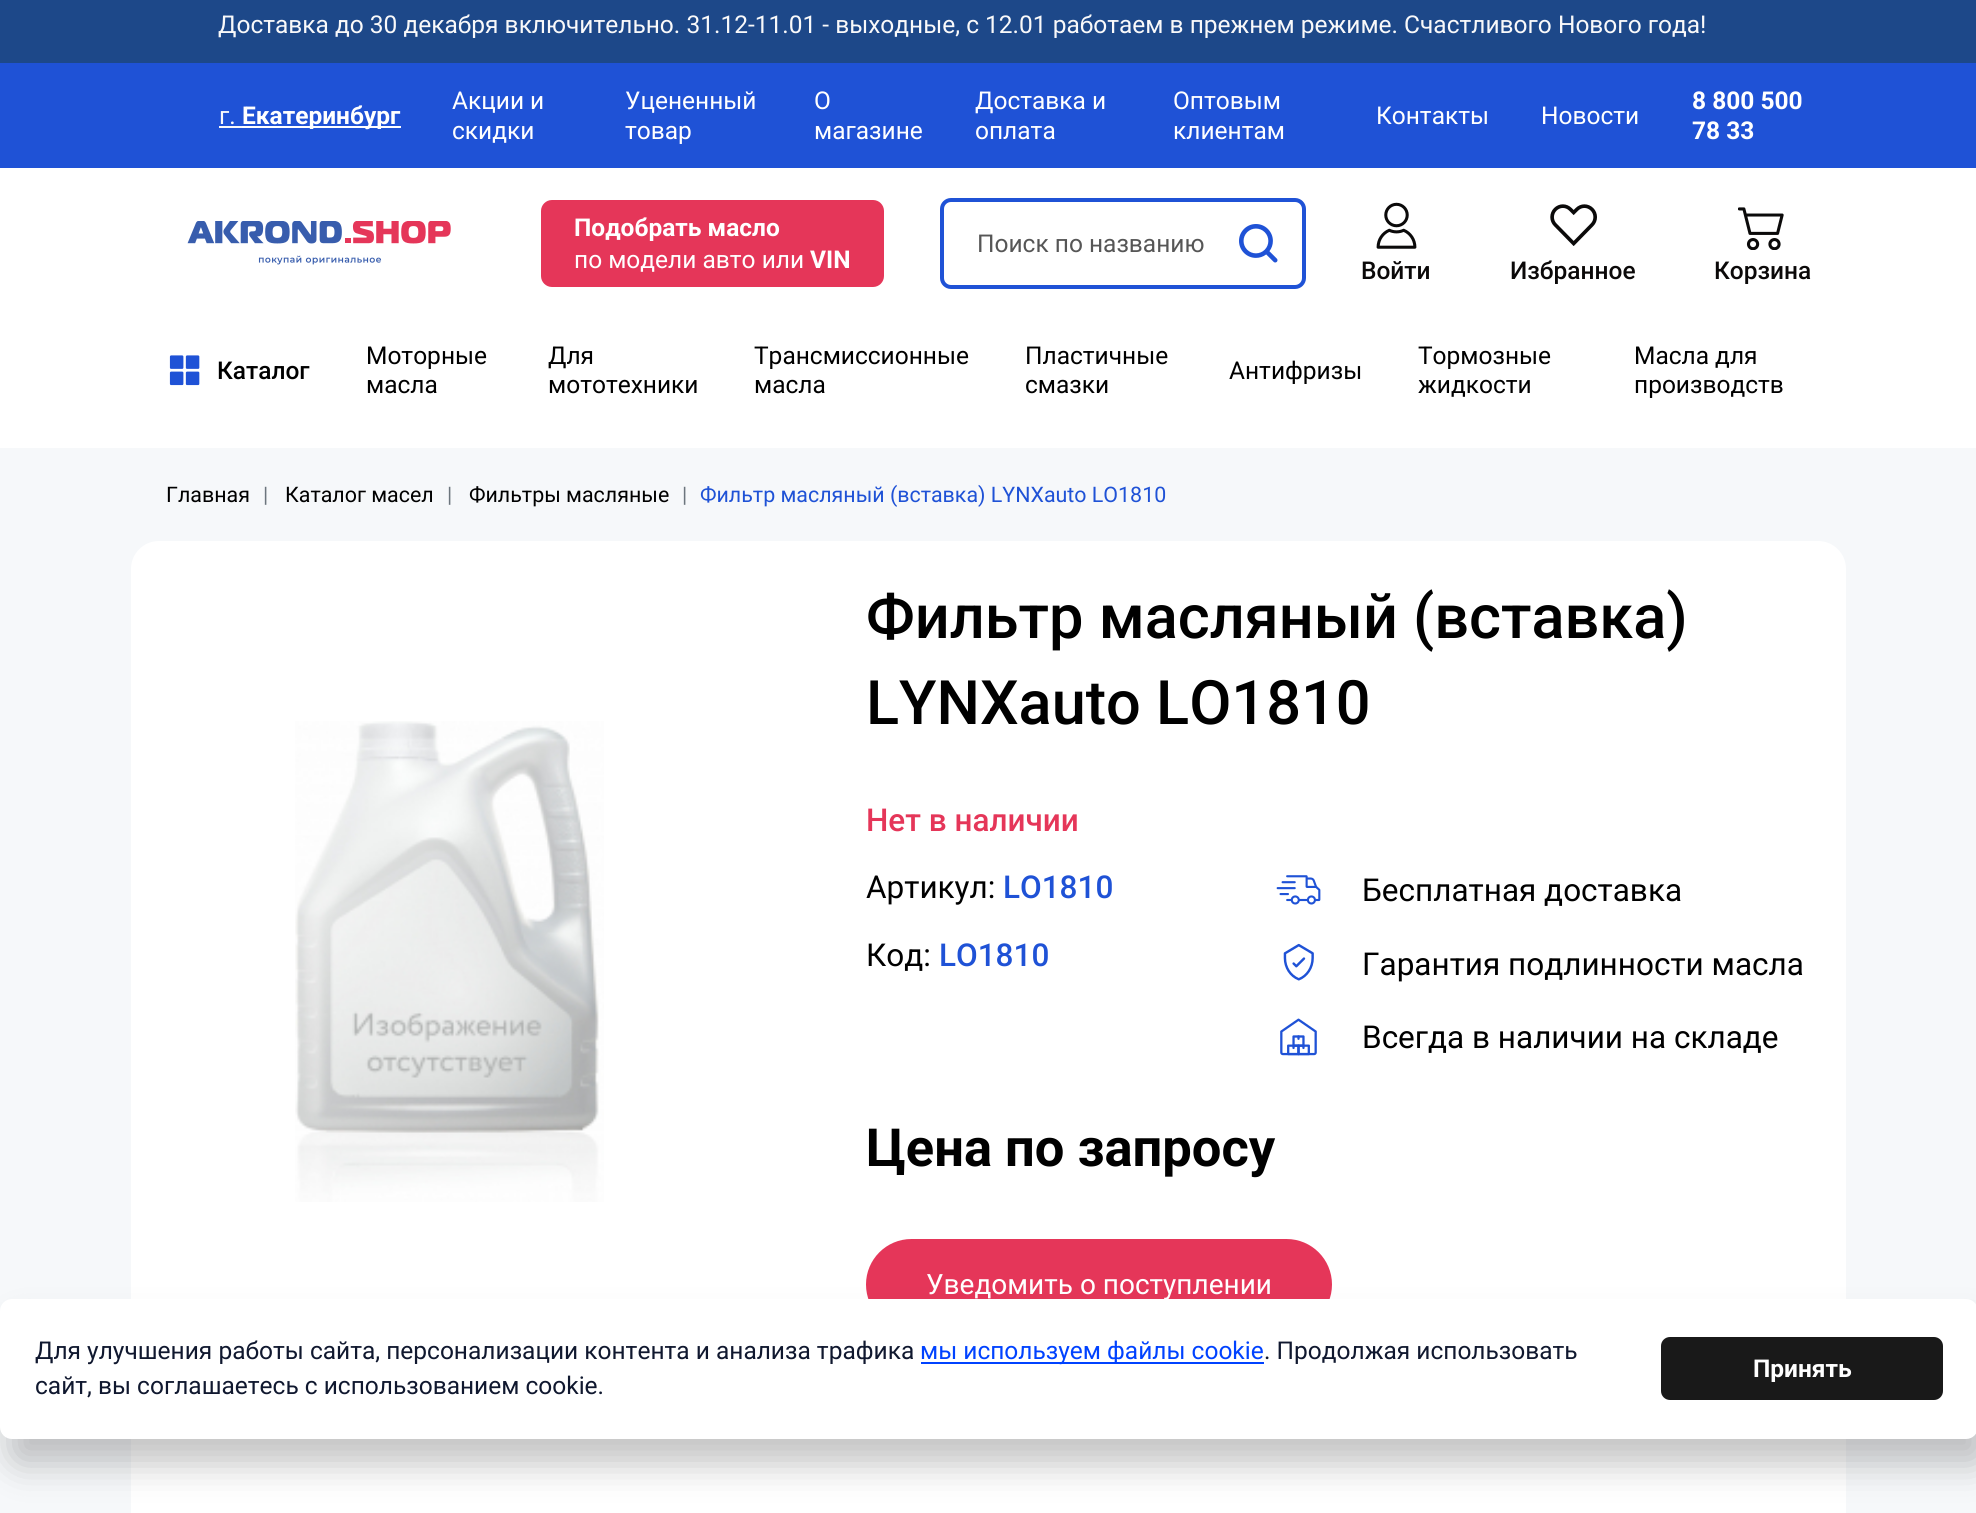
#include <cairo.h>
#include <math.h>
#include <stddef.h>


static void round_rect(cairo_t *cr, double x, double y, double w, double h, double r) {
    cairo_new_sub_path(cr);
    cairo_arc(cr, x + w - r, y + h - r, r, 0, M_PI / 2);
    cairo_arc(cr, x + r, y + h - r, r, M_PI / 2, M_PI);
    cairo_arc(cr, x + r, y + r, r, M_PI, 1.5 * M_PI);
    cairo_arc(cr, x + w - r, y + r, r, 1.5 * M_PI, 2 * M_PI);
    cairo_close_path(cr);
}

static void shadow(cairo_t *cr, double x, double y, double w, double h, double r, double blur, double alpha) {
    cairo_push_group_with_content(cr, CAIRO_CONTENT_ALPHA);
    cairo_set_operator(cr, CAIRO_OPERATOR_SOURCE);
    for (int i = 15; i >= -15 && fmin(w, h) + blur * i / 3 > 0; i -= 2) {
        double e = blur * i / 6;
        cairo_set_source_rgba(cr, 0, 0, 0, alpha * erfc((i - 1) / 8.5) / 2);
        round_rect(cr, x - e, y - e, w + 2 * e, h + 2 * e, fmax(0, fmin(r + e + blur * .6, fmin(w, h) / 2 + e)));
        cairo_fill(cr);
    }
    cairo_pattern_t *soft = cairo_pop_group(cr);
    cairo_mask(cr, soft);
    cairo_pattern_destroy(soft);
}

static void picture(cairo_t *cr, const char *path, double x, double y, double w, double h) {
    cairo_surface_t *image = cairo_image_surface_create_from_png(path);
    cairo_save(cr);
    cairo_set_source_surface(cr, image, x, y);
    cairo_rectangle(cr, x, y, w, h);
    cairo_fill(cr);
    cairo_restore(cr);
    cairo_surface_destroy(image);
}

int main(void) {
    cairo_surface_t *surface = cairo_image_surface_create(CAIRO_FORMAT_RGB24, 1976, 1513);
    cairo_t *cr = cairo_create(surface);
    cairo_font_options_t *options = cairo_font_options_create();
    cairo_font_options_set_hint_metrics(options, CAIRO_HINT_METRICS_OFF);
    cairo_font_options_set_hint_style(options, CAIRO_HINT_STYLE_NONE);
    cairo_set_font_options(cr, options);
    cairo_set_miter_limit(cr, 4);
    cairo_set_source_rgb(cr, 0.961, 0.969, 0.98);
    cairo_paint(cr);
    cairo_set_source_rgb(cr, 0.114, 0.282, 0.537);
    cairo_rectangle(cr, 0, 0, 1976, 63);
    cairo_fill(cr);
    cairo_select_font_face(cr, "Roboto", CAIRO_FONT_SLANT_NORMAL, CAIRO_FONT_WEIGHT_NORMAL);
    cairo_set_font_size(cr, 24.5);
    cairo_set_source_rgb(cr, 0.973, 0.976, 0.98);
    cairo_move_to(cr, 218, 33);
    cairo_show_text(cr, "Доставка до 30 декабря включительно. 31.12-11.01 - выходные, с 12.01 работаем в прежнем режиме. Счастливого Нового года!");
    cairo_set_source_rgb(cr, 0.122, 0.322, 0.839);
    cairo_rectangle(cr, 0, 63, 1976, 105);
    cairo_fill(cr);
    cairo_set_source_rgb(cr, 0.973, 0.976, 0.98);
    cairo_move_to(cr, 219, 124);
    cairo_show_text(cr, "г.");
    cairo_rectangle(cr, 219, 126, 23, 2);
    cairo_fill(cr);
    cairo_set_source_rgb(cr, 1, 1, 1);
    cairo_rectangle(cr, 242, 126, 159, 2);
    cairo_fill(cr);
    cairo_select_font_face(cr, "Roboto", CAIRO_FONT_SLANT_NORMAL, CAIRO_FONT_WEIGHT_BOLD);
    cairo_move_to(cr, 242, 124);
    cairo_show_text(cr, "Екатеринбург");
    cairo_select_font_face(cr, "Roboto", CAIRO_FONT_SLANT_NORMAL, CAIRO_FONT_WEIGHT_NORMAL);
    cairo_move_to(cr, 452, 109);
    cairo_show_text(cr, "Акции и");
    cairo_move_to(cr, 452, 139);
    cairo_show_text(cr, "скидки");
    cairo_move_to(cr, 625, 109);
    cairo_show_text(cr, "Уцененный");
    cairo_move_to(cr, 625, 139);
    cairo_show_text(cr, "товар");
    cairo_move_to(cr, 814, 109);
    cairo_show_text(cr, "О");
    cairo_move_to(cr, 814, 139);
    cairo_show_text(cr, "магазине");
    cairo_move_to(cr, 975, 109);
    cairo_show_text(cr, "Доставка и");
    cairo_move_to(cr, 975, 139);
    cairo_show_text(cr, "оплата");
    cairo_move_to(cr, 1173, 109);
    cairo_show_text(cr, "Оптовым");
    cairo_move_to(cr, 1173, 139);
    cairo_show_text(cr, "клиентам");
    cairo_move_to(cr, 1376, 124);
    cairo_show_text(cr, "Контакты");
    cairo_move_to(cr, 1541, 124);
    cairo_show_text(cr, "Новости");
    cairo_select_font_face(cr, "Roboto", CAIRO_FONT_SLANT_NORMAL, CAIRO_FONT_WEIGHT_BOLD);
    cairo_move_to(cr, 1692, 109);
    cairo_show_text(cr, "8 800 500");
    cairo_move_to(cr, 1692, 139);
    cairo_show_text(cr, "78 33");
    cairo_rectangle(cr, 0, 168, 1976, 280);
    cairo_fill(cr);
    picture(cr, "img1.png", 187, 221, 264, 44);
    cairo_set_source_rgb(cr, 0.898, 0.212, 0.349);
    round_rect(cr, 541, 200, 343, 87, 11);
    cairo_fill(cr);
    cairo_set_source_rgb(cr, 1, 1, 1);
    cairo_move_to(cr, 574, 236);
    cairo_show_text(cr, "Подобрать масло");
    cairo_select_font_face(cr, "Roboto", CAIRO_FONT_SLANT_NORMAL, CAIRO_FONT_WEIGHT_NORMAL);
    cairo_move_to(cr, 574, 268);
    cairo_show_text(cr, "по модели авто или");
    cairo_select_font_face(cr, "Roboto", CAIRO_FONT_SLANT_NORMAL, CAIRO_FONT_WEIGHT_BOLD);
    cairo_move_to(cr, 810, 268);
    cairo_show_text(cr, "VIN");
    round_rect(cr, 942, 200, 362, 87, 9);
    cairo_set_source_rgb(cr, 0.122, 0.322, 0.839);
    cairo_set_line_width(cr, 4);
    cairo_stroke(cr);
    cairo_select_font_face(cr, "Roboto", CAIRO_FONT_SLANT_NORMAL, CAIRO_FONT_WEIGHT_NORMAL);
    cairo_set_source_rgb(cr, 0.337, 0.337, 0.337);
    cairo_move_to(cr, 977, 252);
    cairo_show_text(cr, "Поиск по названию");
    picture(cr, "img2.png", 1239, 224, 39, 39);
    picture(cr, "img3.png", 1376, 202, 41, 47);
    cairo_select_font_face(cr, "Roboto Medium", CAIRO_FONT_SLANT_NORMAL, CAIRO_FONT_WEIGHT_NORMAL);
    cairo_set_source_rgb(cr, 0.043, 0.039, 0.039);
    cairo_move_to(cr, 1361, 279);
    cairo_show_text(cr, "Войти");
    picture(cr, "img4.png", 1550, 204, 47, 42);
    cairo_move_to(cr, 1510, 279);
    cairo_show_text(cr, "Избранное");
    picture(cr, "img5.png", 1738, 207, 46, 43);
    cairo_move_to(cr, 1714, 279);
    cairo_show_text(cr, "Корзина");
    picture(cr, "img6.png", 169, 355, 31, 31);
    cairo_set_source_rgb(cr, 0, 0, 0);
    cairo_move_to(cr, 217, 379);
    cairo_show_text(cr, "Каталог");
    cairo_select_font_face(cr, "Roboto", CAIRO_FONT_SLANT_NORMAL, CAIRO_FONT_WEIGHT_NORMAL);
    cairo_move_to(cr, 366, 364);
    cairo_show_text(cr, "Моторные");
    cairo_move_to(cr, 366, 393);
    cairo_show_text(cr, "масла");
    cairo_move_to(cr, 548, 364);
    cairo_show_text(cr, "Для");
    cairo_move_to(cr, 548, 393);
    cairo_show_text(cr, "мототехники");
    cairo_move_to(cr, 754, 364);
    cairo_show_text(cr, "Трансмиссионные");
    cairo_move_to(cr, 754, 393);
    cairo_show_text(cr, "масла");
    cairo_move_to(cr, 1025, 364);
    cairo_show_text(cr, "Пластичные");
    cairo_move_to(cr, 1025, 393);
    cairo_show_text(cr, "смазки");
    cairo_move_to(cr, 1229, 379);
    cairo_show_text(cr, "Антифризы");
    cairo_move_to(cr, 1418, 364);
    cairo_show_text(cr, "Тормозные");
    cairo_move_to(cr, 1418, 393);
    cairo_show_text(cr, "жидкости");
    cairo_move_to(cr, 1634, 364);
    cairo_show_text(cr, "Масла для");
    cairo_move_to(cr, 1634, 393);
    cairo_show_text(cr, "производств");
    cairo_set_font_size(cr, 21.4);
    cairo_move_to(cr, 166, 502);
    cairo_show_text(cr, "Главная");
    cairo_set_source_rgb(cr, 0.424, 0.459, 0.49);
    cairo_move_to(cr, 263, 502);
    cairo_show_text(cr, "|");
    cairo_set_source_rgb(cr, 0, 0, 0);
    cairo_move_to(cr, 285, 502);
    cairo_show_text(cr, "Каталог масел");
    cairo_set_source_rgb(cr, 0.424, 0.459, 0.49);
    cairo_move_to(cr, 447, 502);
    cairo_show_text(cr, "|");
    cairo_set_source_rgb(cr, 0, 0, 0);
    cairo_move_to(cr, 469, 502);
    cairo_show_text(cr, "Фильтры масляные");
    cairo_set_source_rgb(cr, 0.424, 0.459, 0.49);
    cairo_move_to(cr, 682, 502);
    cairo_show_text(cr, "|");
    cairo_set_source_rgb(cr, 0.122, 0.322, 0.839);
    cairo_move_to(cr, 700, 502);
    cairo_show_text(cr, "Фильтр масляный (вставка) LYNXauto LO1810");
    cairo_set_source_rgb(cr, 1, 1, 1);
    round_rect(cr, 131, 541, 1715, 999, 28);
    cairo_fill(cr);
    picture(cr, "img7.png", 295, 721, 309, 481);
    cairo_select_font_face(cr, "Roboto Medium", CAIRO_FONT_SLANT_NORMAL, CAIRO_FONT_WEIGHT_NORMAL);
    cairo_set_font_size(cr, 61.25);
    cairo_set_source_rgb(cr, 0, 0, 0);
    cairo_move_to(cr, 866, 638);
    cairo_show_text(cr, "Фильтр масляный (вставка)");
    cairo_move_to(cr, 866, 724);
    cairo_show_text(cr, "LYNXauto LO1810");
    cairo_set_font_size(cr, 31.5);
    cairo_set_source_rgb(cr, 0.898, 0.212, 0.349);
    cairo_move_to(cr, 866, 831);
    cairo_show_text(cr, "Нет в наличии");
    cairo_select_font_face(cr, "Roboto", CAIRO_FONT_SLANT_NORMAL, CAIRO_FONT_WEIGHT_NORMAL);
    cairo_set_source_rgb(cr, 0, 0, 0);
    cairo_move_to(cr, 866, 898);
    cairo_show_text(cr, "Артикул:");
    cairo_select_font_face(cr, "Roboto Medium", CAIRO_FONT_SLANT_NORMAL, CAIRO_FONT_WEIGHT_NORMAL);
    cairo_set_source_rgb(cr, 0.122, 0.322, 0.839);
    cairo_move_to(cr, 1003, 898);
    cairo_show_text(cr, "LO1810");
    cairo_select_font_face(cr, "Roboto", CAIRO_FONT_SLANT_NORMAL, CAIRO_FONT_WEIGHT_NORMAL);
    cairo_set_source_rgb(cr, 0, 0, 0);
    cairo_move_to(cr, 866, 966);
    cairo_show_text(cr, "Код:");
    cairo_select_font_face(cr, "Roboto Medium", CAIRO_FONT_SLANT_NORMAL, CAIRO_FONT_WEIGHT_NORMAL);
    cairo_set_source_rgb(cr, 0.122, 0.322, 0.839);
    cairo_move_to(cr, 939, 966);
    cairo_show_text(cr, "LO1810");
    picture(cr, "img8.png", 1276, 875, 45, 30);
    cairo_select_font_face(cr, "Roboto", CAIRO_FONT_SLANT_NORMAL, CAIRO_FONT_WEIGHT_NORMAL);
    cairo_set_source_rgb(cr, 0, 0, 0);
    cairo_move_to(cr, 1362, 901);
    cairo_show_text(cr, "Бесплатная доставка");
    picture(cr, "img9.png", 1283, 943, 31, 38);
    cairo_move_to(cr, 1362, 975);
    cairo_show_text(cr, "Гарантия подлинности масла");
    picture(cr, "img10.png", 1280, 1018, 37, 38);
    cairo_move_to(cr, 1362, 1048);
    cairo_show_text(cr, "Всегда в наличии на складе");
    cairo_select_font_face(cr, "Roboto", CAIRO_FONT_SLANT_NORMAL, CAIRO_FONT_WEIGHT_BOLD);
    cairo_set_font_size(cr, 52.5);
    cairo_move_to(cr, 866, 1166);
    cairo_show_text(cr, "Цена по запросу");
    cairo_set_source_rgb(cr, 0.898, 0.212, 0.349);
    round_rect(cr, 866, 1239, 466, 91, 45.5);
    cairo_fill(cr);
    cairo_select_font_face(cr, "Roboto", CAIRO_FONT_SLANT_NORMAL, CAIRO_FONT_WEIGHT_NORMAL);
    cairo_set_font_size(cr, 28);
    cairo_set_source_rgb(cr, 1, 1, 1);
    cairo_move_to(cr, 926, 1294);
    cairo_show_text(cr, "Уведомить о поступлении");
    cairo_set_source_rgb(cr, 0, 0, 0);
    shadow(cr, 9, 1325, 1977, 140, 12, 17.5, 0.23);
    cairo_set_source_rgb(cr, 1, 1, 1);
    round_rect(cr, 0, 1299, 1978, 140, 12);
    cairo_fill(cr);
    cairo_set_font_size(cr, 24.5);
    cairo_set_source_rgb(cr, 0.063, 0.094, 0.184);
    cairo_move_to(cr, 35, 1359);
    cairo_show_text(cr, "Для улучшения работы сайта, персонализации контента и анализа трафика");
    cairo_set_source_rgb(cr, 0, 0.259, 1);
    cairo_rectangle(cr, 921, 1362, 343, 2);
    cairo_fill(cr);
    cairo_move_to(cr, 920, 1359);
    cairo_show_text(cr, "мы используем файлы cookie");
    cairo_set_source_rgb(cr, 0.063, 0.094, 0.184);
    cairo_move_to(cr, 1264, 1359);
    cairo_show_text(cr, ". Продолжая использовать");
    cairo_move_to(cr, 35, 1394);
    cairo_show_text(cr, "сайт, вы соглашаетесь с использованием cookie.");
    cairo_set_source_rgb(cr, 0.098, 0.098, 0.098);
    round_rect(cr, 1662, 1338, 280, 61, 8);
    cairo_fill_preserve(cr);
    cairo_set_line_width(cr, 2);
    cairo_stroke(cr);
    cairo_select_font_face(cr, "Roboto", CAIRO_FONT_SLANT_NORMAL, CAIRO_FONT_WEIGHT_BOLD);
    cairo_set_source_rgb(cr, 1, 1, 1);
    cairo_move_to(cr, 1753, 1377);
    cairo_show_text(cr, "Принять");
    cairo_surface_write_to_png(surface, "page.png");
    cairo_font_options_destroy(options);
    cairo_destroy(cr);
    cairo_surface_destroy(surface);
    return 0;
}
